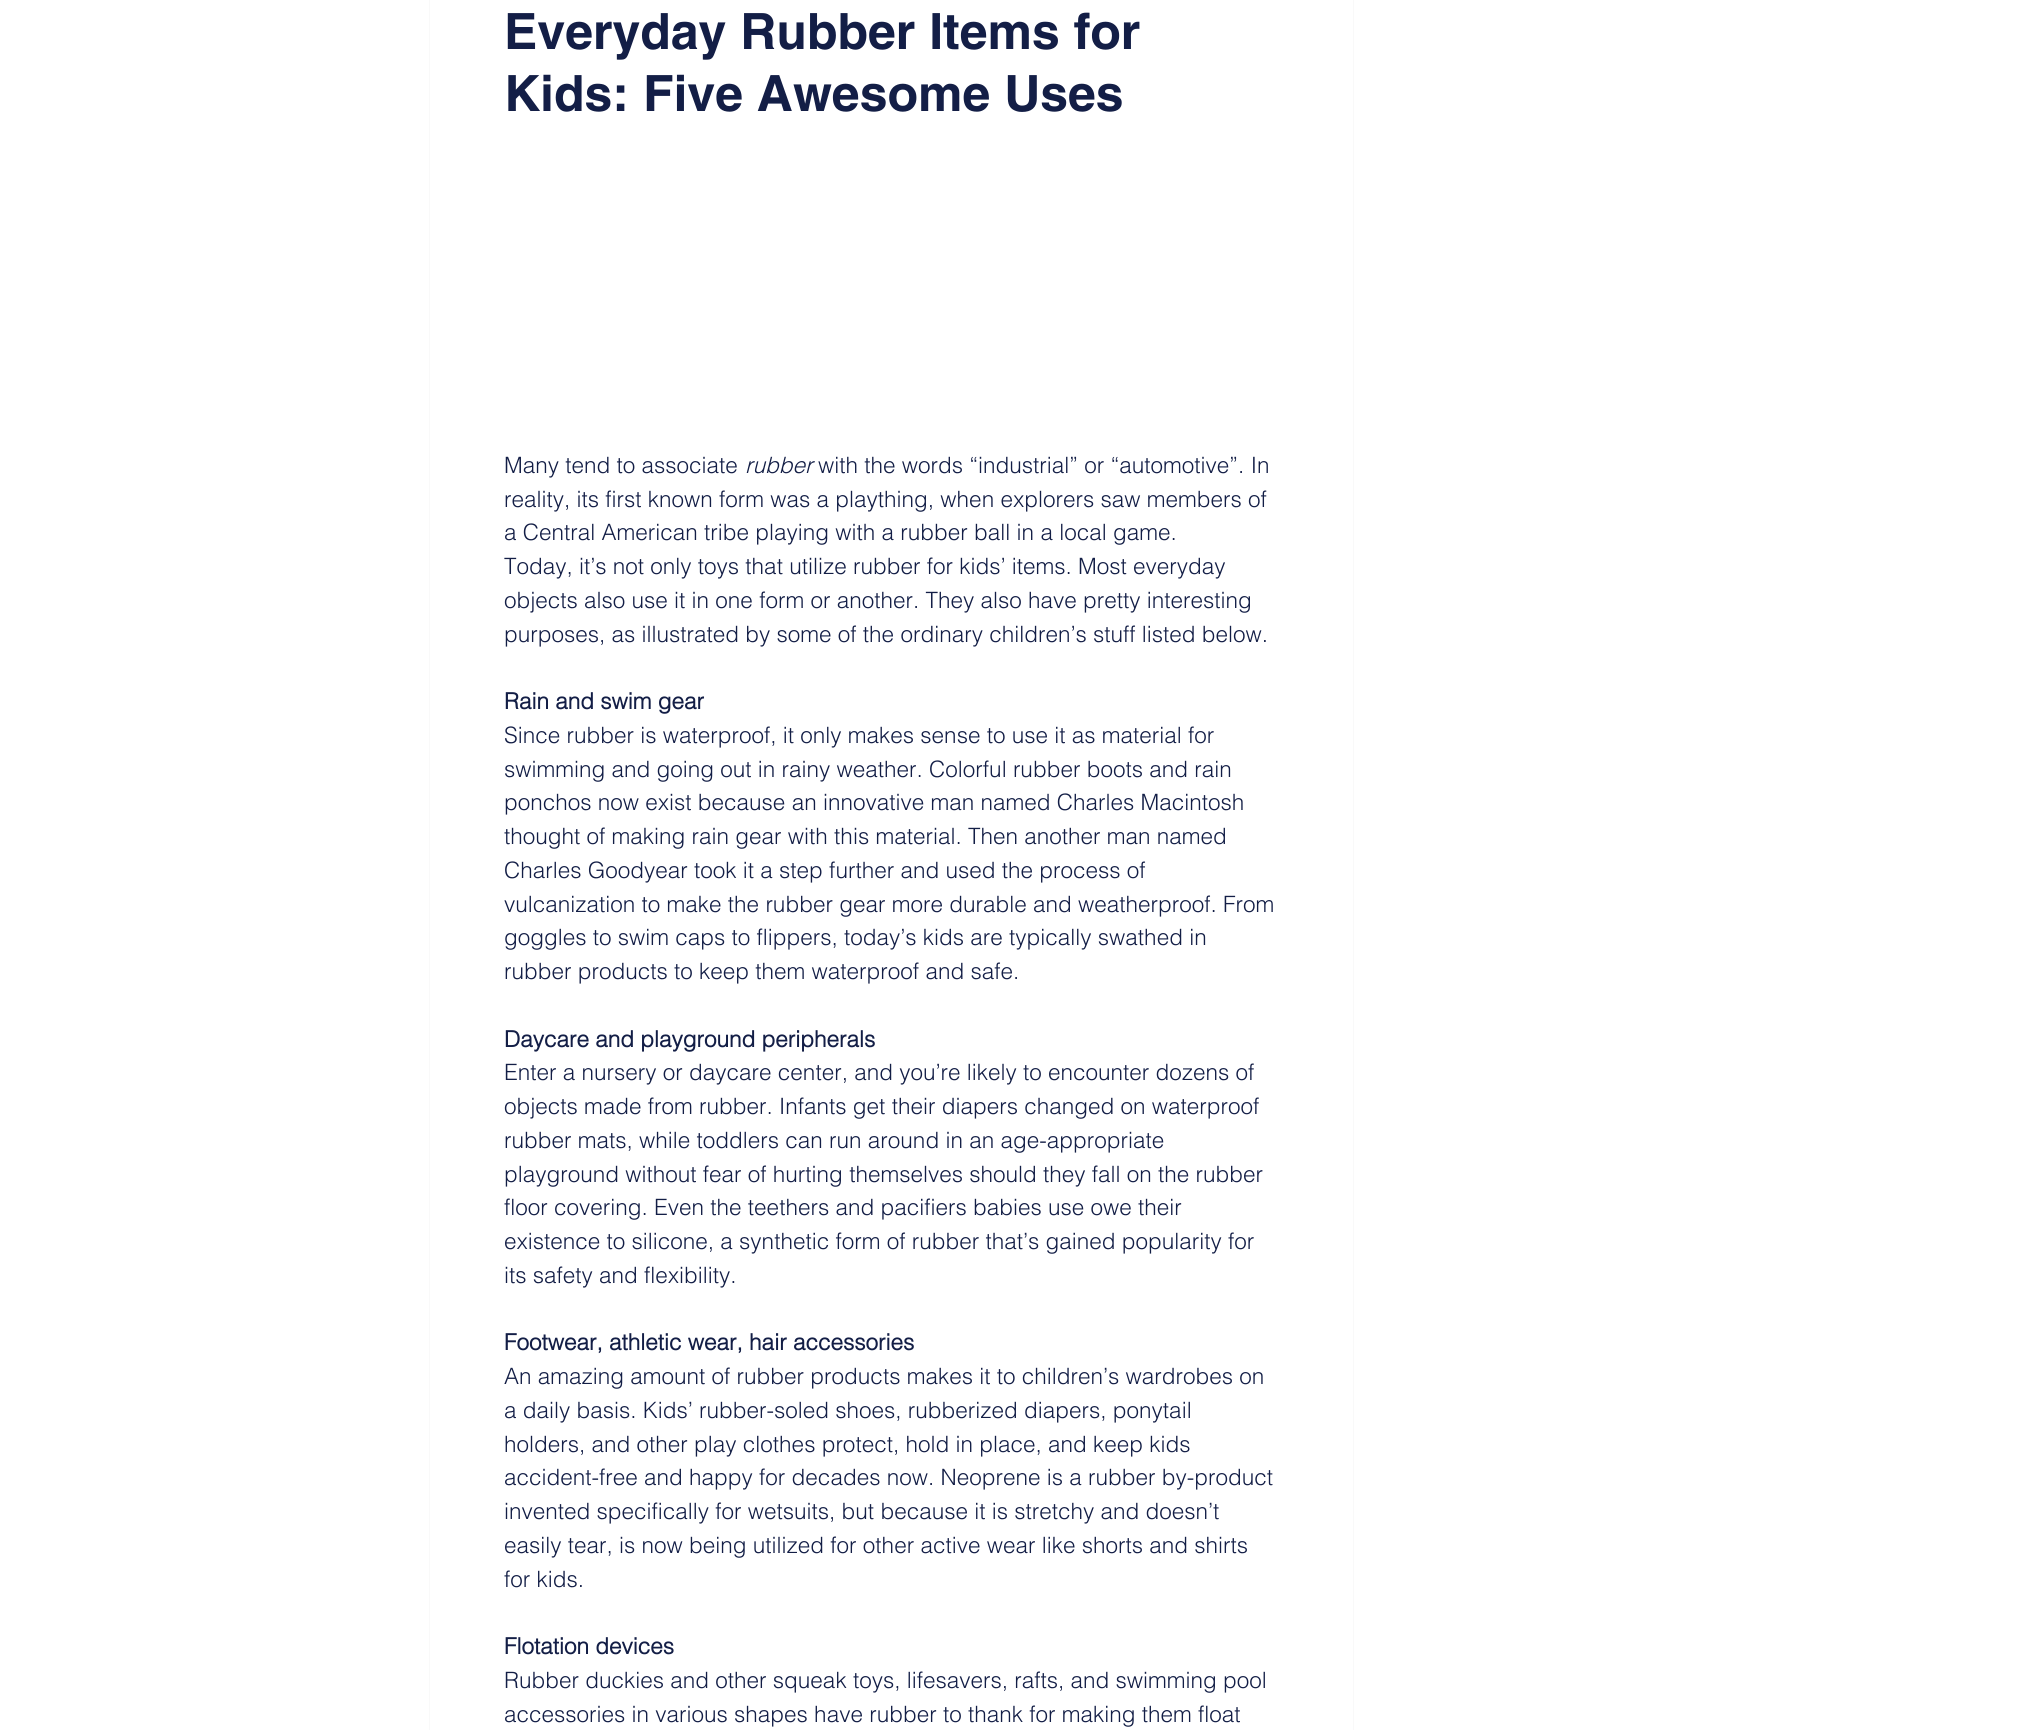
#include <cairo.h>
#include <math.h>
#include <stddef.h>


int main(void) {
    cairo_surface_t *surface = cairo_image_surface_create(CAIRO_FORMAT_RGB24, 2031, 1730);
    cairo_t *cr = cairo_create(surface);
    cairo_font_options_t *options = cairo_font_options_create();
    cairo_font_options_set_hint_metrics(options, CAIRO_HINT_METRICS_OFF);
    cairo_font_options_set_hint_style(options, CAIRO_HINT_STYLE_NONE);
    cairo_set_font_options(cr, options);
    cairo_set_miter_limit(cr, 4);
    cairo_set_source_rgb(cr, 1, 1, 1);
    cairo_paint(cr);
    cairo_rectangle(cr, 429.5, -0.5, 924, 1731);
    cairo_set_source_rgb(cr, 0.976, 0.976, 0.976);
    cairo_set_line_width(cr, 1);
    cairo_stroke(cr);
    cairo_select_font_face(cr, "helvetica", CAIRO_FONT_SLANT_NORMAL, CAIRO_FONT_WEIGHT_BOLD);
    cairo_set_font_size(cr, 50);
    cairo_set_source_rgb(cr, 0.078, 0.118, 0.275);
    cairo_move_to(cr, 504, 49);
    cairo_show_text(cr, "Everyday Rubber Items for");
    cairo_move_to(cr, 504, 111);
    cairo_show_text(cr, "Kids: Five Awesome Uses");
    cairo_select_font_face(cr, "helvetica Light", CAIRO_FONT_SLANT_NORMAL, CAIRO_FONT_WEIGHT_NORMAL);
    cairo_set_font_size(cr, 22.5);
    cairo_move_to(cr, 504, 473);
    cairo_show_text(cr, "Many tend to associate");
    cairo_select_font_face(cr, "helvetica Light", CAIRO_FONT_SLANT_ITALIC, CAIRO_FONT_WEIGHT_NORMAL);
    cairo_move_to(cr, 745, 473);
    cairo_show_text(cr, "rubber");
    cairo_select_font_face(cr, "helvetica Light", CAIRO_FONT_SLANT_NORMAL, CAIRO_FONT_WEIGHT_NORMAL);
    cairo_move_to(cr, 818, 473);
    cairo_show_text(cr, "with the words “industrial” or “automotive”. In");
    cairo_move_to(cr, 504, 507);
    cairo_show_text(cr, "reality, its first known form was a plaything, when explorers saw members of");
    cairo_move_to(cr, 504, 540);
    cairo_show_text(cr, "a Central American tribe playing with a rubber ball in a local game.");
    cairo_move_to(cr, 504, 574);
    cairo_show_text(cr, "Today, it’s not only toys that utilize rubber for kids’ items. Most everyday");
    cairo_move_to(cr, 504, 608);
    cairo_show_text(cr, "objects also use it in one form or another. They also have pretty interesting");
    cairo_move_to(cr, 504, 642);
    cairo_show_text(cr, "purposes, as illustrated by some of the ordinary children’s stuff listed below.");
    cairo_select_font_face(cr, "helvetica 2", CAIRO_FONT_SLANT_NORMAL, CAIRO_FONT_WEIGHT_BOLD);
    cairo_move_to(cr, 504, 709);
    cairo_show_text(cr, "Rain and swim gear");
    cairo_select_font_face(cr, "helvetica Light", CAIRO_FONT_SLANT_NORMAL, CAIRO_FONT_WEIGHT_NORMAL);
    cairo_move_to(cr, 504, 743);
    cairo_show_text(cr, "Since rubber is waterproof, it only makes sense to use it as material for");
    cairo_move_to(cr, 504, 777);
    cairo_show_text(cr, "swimming and going out in rainy weather. Colorful rubber boots and rain");
    cairo_move_to(cr, 504, 810);
    cairo_show_text(cr, "ponchos now exist because an innovative man named Charles Macintosh");
    cairo_move_to(cr, 504, 844);
    cairo_show_text(cr, "thought of making rain gear with this material. Then another man named");
    cairo_move_to(cr, 504, 878);
    cairo_show_text(cr, "Charles Goodyear took it a step further and used the process of");
    cairo_move_to(cr, 504, 912);
    cairo_show_text(cr, "vulcanization to make the rubber gear more durable and weatherproof. From");
    cairo_move_to(cr, 504, 945);
    cairo_show_text(cr, "goggles to swim caps to flippers, today’s kids are typically swathed in");
    cairo_move_to(cr, 504, 979);
    cairo_show_text(cr, "rubber products to keep them waterproof and safe.");
    cairo_select_font_face(cr, "helvetica 2", CAIRO_FONT_SLANT_NORMAL, CAIRO_FONT_WEIGHT_BOLD);
    cairo_move_to(cr, 504, 1047);
    cairo_show_text(cr, "Daycare and playground peripherals");
    cairo_select_font_face(cr, "helvetica Light", CAIRO_FONT_SLANT_NORMAL, CAIRO_FONT_WEIGHT_NORMAL);
    cairo_move_to(cr, 504, 1080);
    cairo_show_text(cr, "Enter a nursery or daycare center, and you’re likely to encounter dozens of");
    cairo_move_to(cr, 504, 1114);
    cairo_show_text(cr, "objects made from rubber. Infants get their diapers changed on waterproof");
    cairo_move_to(cr, 504, 1148);
    cairo_show_text(cr, "rubber mats, while toddlers can run around in an age-appropriate");
    cairo_move_to(cr, 504, 1182);
    cairo_show_text(cr, "playground without fear of hurting themselves should they fall on the rubber");
    cairo_move_to(cr, 504, 1215);
    cairo_show_text(cr, "floor covering. Even the teethers and pacifiers babies use owe their");
    cairo_move_to(cr, 504, 1249);
    cairo_show_text(cr, "existence to silicone, a synthetic form of rubber that’s gained popularity for");
    cairo_move_to(cr, 504, 1283);
    cairo_show_text(cr, "its safety and flexibility.");
    cairo_select_font_face(cr, "helvetica 2", CAIRO_FONT_SLANT_NORMAL, CAIRO_FONT_WEIGHT_BOLD);
    cairo_move_to(cr, 504, 1350);
    cairo_show_text(cr, "Footwear, athletic wear, hair accessories");
    cairo_select_font_face(cr, "helvetica Light", CAIRO_FONT_SLANT_NORMAL, CAIRO_FONT_WEIGHT_NORMAL);
    cairo_move_to(cr, 504, 1384);
    cairo_show_text(cr, "An amazing amount of rubber products makes it to children’s wardrobes on");
    cairo_move_to(cr, 504, 1418);
    cairo_show_text(cr, "a daily basis. Kids’ rubber-soled shoes, rubberized diapers, ponytail");
    cairo_move_to(cr, 504, 1452);
    cairo_show_text(cr, "holders, and other play clothes protect, hold in place, and keep kids");
    cairo_move_to(cr, 504, 1485);
    cairo_show_text(cr, "accident-free and happy for decades now. Neoprene is a rubber by-product");
    cairo_move_to(cr, 504, 1519);
    cairo_show_text(cr, "invented specifically for wetsuits, but because it is stretchy and doesn’t");
    cairo_move_to(cr, 504, 1553);
    cairo_show_text(cr, "easily tear, is now being utilized for other active wear like shorts and shirts");
    cairo_move_to(cr, 504, 1587);
    cairo_show_text(cr, "for kids.");
    cairo_select_font_face(cr, "helvetica 2", CAIRO_FONT_SLANT_NORMAL, CAIRO_FONT_WEIGHT_BOLD);
    cairo_move_to(cr, 504, 1654);
    cairo_show_text(cr, "Flotation devices");
    cairo_select_font_face(cr, "helvetica Light", CAIRO_FONT_SLANT_NORMAL, CAIRO_FONT_WEIGHT_NORMAL);
    cairo_move_to(cr, 504, 1688);
    cairo_show_text(cr, "Rubber duckies and other squeak toys, lifesavers, rafts, and swimming pool");
    cairo_move_to(cr, 504, 1722);
    cairo_show_text(cr, "accessories in various shapes have rubber to thank for making them float");
    cairo_surface_write_to_png(surface, "page.png");
    cairo_font_options_destroy(options);
    cairo_destroy(cr);
    cairo_surface_destroy(surface);
    return 0;
}
